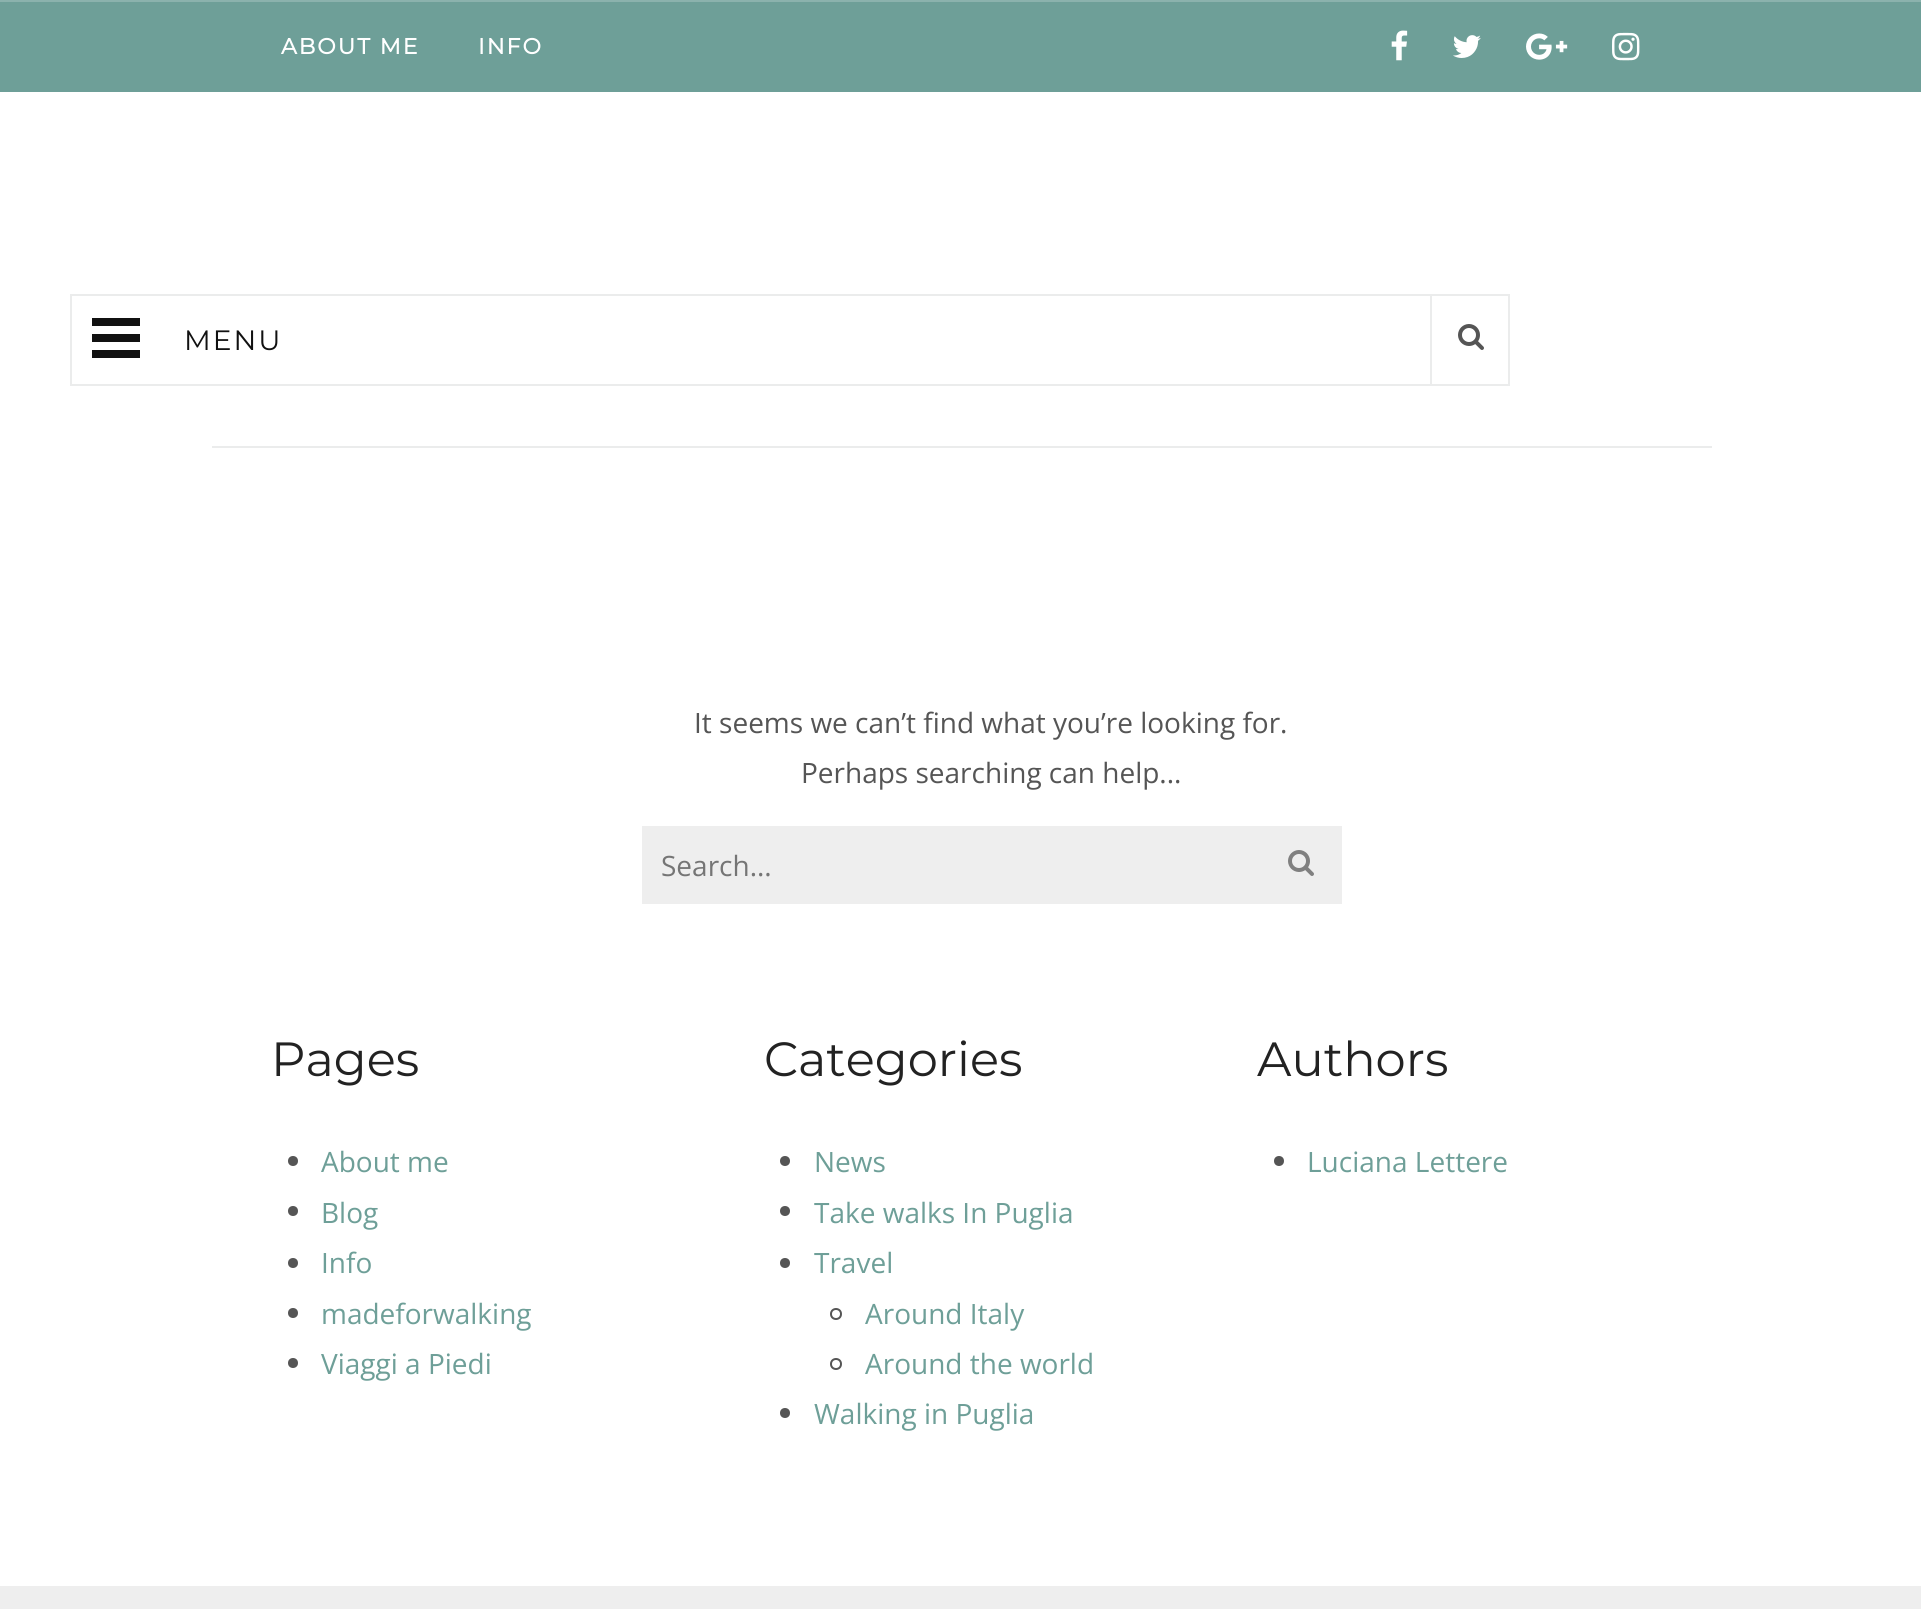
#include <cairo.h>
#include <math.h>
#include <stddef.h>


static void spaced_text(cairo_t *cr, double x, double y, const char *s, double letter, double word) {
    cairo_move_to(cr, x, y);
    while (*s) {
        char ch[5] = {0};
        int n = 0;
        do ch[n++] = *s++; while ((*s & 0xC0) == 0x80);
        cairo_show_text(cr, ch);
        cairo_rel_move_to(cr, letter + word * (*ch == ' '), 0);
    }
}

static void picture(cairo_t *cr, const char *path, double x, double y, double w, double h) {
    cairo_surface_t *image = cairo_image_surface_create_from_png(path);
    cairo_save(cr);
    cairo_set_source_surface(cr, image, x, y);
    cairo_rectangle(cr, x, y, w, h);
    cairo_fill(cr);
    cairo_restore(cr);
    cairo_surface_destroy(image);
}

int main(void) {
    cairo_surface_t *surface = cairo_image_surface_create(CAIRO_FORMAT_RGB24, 1921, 1609);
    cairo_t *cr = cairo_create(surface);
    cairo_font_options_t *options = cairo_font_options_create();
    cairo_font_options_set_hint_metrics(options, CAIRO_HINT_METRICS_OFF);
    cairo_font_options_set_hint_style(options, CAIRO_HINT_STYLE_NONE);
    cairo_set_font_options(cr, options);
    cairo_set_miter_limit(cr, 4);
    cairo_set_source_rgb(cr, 1, 1, 1);
    cairo_paint(cr);
    cairo_set_source_rgb(cr, 0.431, 0.624, 0.596);
    cairo_rectangle(cr, 0, 2, 1921, 90);
    cairo_fill(cr);
    cairo_set_source_rgb(cr, 0.545, 0.698, 0.678);
    cairo_rectangle(cr, 0, 0, 1921, 2);
    cairo_fill(cr);
    cairo_select_font_face(cr, "Montserrat", CAIRO_FONT_SLANT_NORMAL, CAIRO_FONT_WEIGHT_BOLD);
    cairo_set_font_size(cr, 22);
    cairo_set_source_rgb(cr, 1, 1, 1);
    spaced_text(cr, 281, 54, "ABOUT ME", 2, 0);
    spaced_text(cr, 478, 54, "INFO", 2, 0);
    picture(cr, "img1.png", 1391, 30, 17, 31);
    picture(cr, "img2.png", 1453, 35, 28, 23);
    picture(cr, "img3.png", 1526, 33, 42, 27);
    picture(cr, "img4.png", 1612, 32, 28, 29);
    cairo_rectangle(cr, 71, 295, 1438, 90);
    cairo_set_source_rgb(cr, 0.918, 0.922, 0.925);
    cairo_stroke(cr);
    cairo_set_source_rgb(cr, 0.067, 0.067, 0.067);
    cairo_rectangle(cr, 92, 334, 48, 8);
    cairo_fill(cr);
    cairo_rectangle(cr, 92, 318, 48, 8);
    cairo_fill(cr);
    cairo_rectangle(cr, 92, 350, 48, 8);
    cairo_fill(cr);
    cairo_select_font_face(cr, "Montserrat Thin", CAIRO_FONT_SLANT_NORMAL, CAIRO_FONT_WEIGHT_NORMAL);
    cairo_set_font_size(cr, 28);
    spaced_text(cr, 184, 350, "MENU", 2, 0);
    cairo_set_source_rgb(cr, 0.918, 0.922, 0.925);
    cairo_rectangle(cr, 1430, 294, 2, 92);
    cairo_fill(cr);
    picture(cr, "img5.png", 1458, 324, 26, 26);
    cairo_rectangle(cr, 212, 446, 1500, 2);
    cairo_fill(cr);
    cairo_select_font_face(cr, "Open Sans", CAIRO_FONT_SLANT_NORMAL, CAIRO_FONT_WEIGHT_NORMAL);
    cairo_set_source_rgb(cr, 0.333, 0.333, 0.333);
    cairo_move_to(cr, 694, 733);
    cairo_show_text(cr, "It seems we can’t find what you’re looking for.");
    cairo_move_to(cr, 801, 783);
    cairo_show_text(cr, "Perhaps searching can help...");
    cairo_set_source_rgb(cr, 0.933, 0.933, 0.933);
    cairo_rectangle(cr, 642, 826, 700, 78);
    cairo_fill(cr);
    cairo_set_source_rgb(cr, 0.459, 0.459, 0.459);
    cairo_move_to(cr, 661, 876);
    cairo_show_text(cr, "Search...");
    picture(cr, "img6.png", 1288, 850, 26, 26);
    cairo_select_font_face(cr, "Montserrat Thin", CAIRO_FONT_SLANT_NORMAL, CAIRO_FONT_WEIGHT_NORMAL);
    cairo_set_font_size(cr, 48);
    cairo_set_source_rgb(cr, 0.133, 0.133, 0.133);
    cairo_move_to(cr, 271, 1076);
    cairo_show_text(cr, "Pages");
    cairo_set_source_rgb(cr, 0.333, 0.333, 0.333);
    cairo_new_path(cr);
    cairo_arc(cr, 293, 1161, 5, 0, 2 * M_PI);
    cairo_fill(cr);
    cairo_select_font_face(cr, "Open Sans", CAIRO_FONT_SLANT_NORMAL, CAIRO_FONT_WEIGHT_NORMAL);
    cairo_set_font_size(cr, 28);
    cairo_set_source_rgb(cr, 0.431, 0.624, 0.596);
    cairo_move_to(cr, 321, 1172);
    cairo_show_text(cr, "About me");
    cairo_set_source_rgb(cr, 0.333, 0.333, 0.333);
    cairo_new_path(cr);
    cairo_arc(cr, 293, 1211, 5, 0, 2 * M_PI);
    cairo_fill(cr);
    cairo_set_source_rgb(cr, 0.431, 0.624, 0.596);
    cairo_move_to(cr, 321, 1223);
    cairo_show_text(cr, "Blog");
    cairo_set_source_rgb(cr, 0.333, 0.333, 0.333);
    cairo_new_path(cr);
    cairo_arc(cr, 293, 1263, 5, 0, 2 * M_PI);
    cairo_fill(cr);
    cairo_set_source_rgb(cr, 0.431, 0.624, 0.596);
    cairo_move_to(cr, 321, 1273);
    cairo_show_text(cr, "Info");
    cairo_set_source_rgb(cr, 0.333, 0.333, 0.333);
    cairo_new_path(cr);
    cairo_arc(cr, 293, 1313, 5, 0, 2 * M_PI);
    cairo_fill(cr);
    cairo_set_source_rgb(cr, 0.431, 0.624, 0.596);
    cairo_move_to(cr, 321, 1324);
    cairo_show_text(cr, "madeforwalking");
    cairo_set_source_rgb(cr, 0.333, 0.333, 0.333);
    cairo_new_path(cr);
    cairo_arc(cr, 293, 1363, 5, 0, 2 * M_PI);
    cairo_fill(cr);
    cairo_set_source_rgb(cr, 0.431, 0.624, 0.596);
    cairo_move_to(cr, 321, 1374);
    cairo_show_text(cr, "Viaggi a Piedi");
    cairo_select_font_face(cr, "Montserrat Thin", CAIRO_FONT_SLANT_NORMAL, CAIRO_FONT_WEIGHT_NORMAL);
    cairo_set_font_size(cr, 48);
    cairo_set_source_rgb(cr, 0.133, 0.133, 0.133);
    cairo_move_to(cr, 764, 1076);
    cairo_show_text(cr, "Categories");
    cairo_set_source_rgb(cr, 0.333, 0.333, 0.333);
    cairo_new_path(cr);
    cairo_arc(cr, 785, 1161, 5, 0, 2 * M_PI);
    cairo_fill(cr);
    cairo_select_font_face(cr, "Open Sans", CAIRO_FONT_SLANT_NORMAL, CAIRO_FONT_WEIGHT_NORMAL);
    cairo_set_font_size(cr, 28);
    cairo_set_source_rgb(cr, 0.431, 0.624, 0.596);
    cairo_move_to(cr, 814, 1172);
    cairo_show_text(cr, "News");
    cairo_set_source_rgb(cr, 0.333, 0.333, 0.333);
    cairo_new_path(cr);
    cairo_arc(cr, 785, 1211, 5, 0, 2 * M_PI);
    cairo_fill(cr);
    cairo_set_source_rgb(cr, 0.431, 0.624, 0.596);
    cairo_move_to(cr, 814, 1223);
    cairo_show_text(cr, "Take walks In Puglia");
    cairo_set_source_rgb(cr, 0.333, 0.333, 0.333);
    cairo_new_path(cr);
    cairo_arc(cr, 785, 1263, 5, 0, 2 * M_PI);
    cairo_fill(cr);
    cairo_set_source_rgb(cr, 0.431, 0.624, 0.596);
    cairo_move_to(cr, 814, 1273);
    cairo_show_text(cr, "Travel");
    cairo_new_path(cr);
    cairo_arc(cr, 836, 1314, 5, 0, 2 * M_PI);
    cairo_set_source_rgb(cr, 0.333, 0.333, 0.333);
    cairo_stroke(cr);
    cairo_set_source_rgb(cr, 0.431, 0.624, 0.596);
    cairo_move_to(cr, 865, 1324);
    cairo_show_text(cr, "Around Italy");
    cairo_new_path(cr);
    cairo_arc(cr, 836, 1364, 5, 0, 2 * M_PI);
    cairo_set_source_rgb(cr, 0.333, 0.333, 0.333);
    cairo_stroke(cr);
    cairo_set_source_rgb(cr, 0.431, 0.624, 0.596);
    cairo_move_to(cr, 865, 1374);
    cairo_show_text(cr, "Around the world");
    cairo_set_source_rgb(cr, 0.333, 0.333, 0.333);
    cairo_new_path(cr);
    cairo_arc(cr, 785, 1413, 5, 0, 2 * M_PI);
    cairo_fill(cr);
    cairo_set_source_rgb(cr, 0.431, 0.624, 0.596);
    cairo_move_to(cr, 814, 1424);
    cairo_show_text(cr, "Walking in Puglia");
    cairo_select_font_face(cr, "Montserrat Thin", CAIRO_FONT_SLANT_NORMAL, CAIRO_FONT_WEIGHT_NORMAL);
    cairo_set_font_size(cr, 48);
    cairo_set_source_rgb(cr, 0.133, 0.133, 0.133);
    cairo_move_to(cr, 1257, 1076);
    cairo_show_text(cr, "Authors");
    cairo_set_source_rgb(cr, 0.333, 0.333, 0.333);
    cairo_new_path(cr);
    cairo_arc(cr, 1279, 1161, 5, 0, 2 * M_PI);
    cairo_fill(cr);
    cairo_select_font_face(cr, "Open Sans", CAIRO_FONT_SLANT_NORMAL, CAIRO_FONT_WEIGHT_NORMAL);
    cairo_set_font_size(cr, 28);
    cairo_set_source_rgb(cr, 0.431, 0.624, 0.596);
    cairo_move_to(cr, 1307, 1172);
    cairo_show_text(cr, "Luciana Lettere");
    cairo_set_source_rgb(cr, 0.933, 0.933, 0.933);
    cairo_rectangle(cr, 0, 1586, 1921, 23);
    cairo_fill(cr);
    cairo_surface_write_to_png(surface, "page.png");
    cairo_font_options_destroy(options);
    cairo_destroy(cr);
    cairo_surface_destroy(surface);
    return 0;
}
